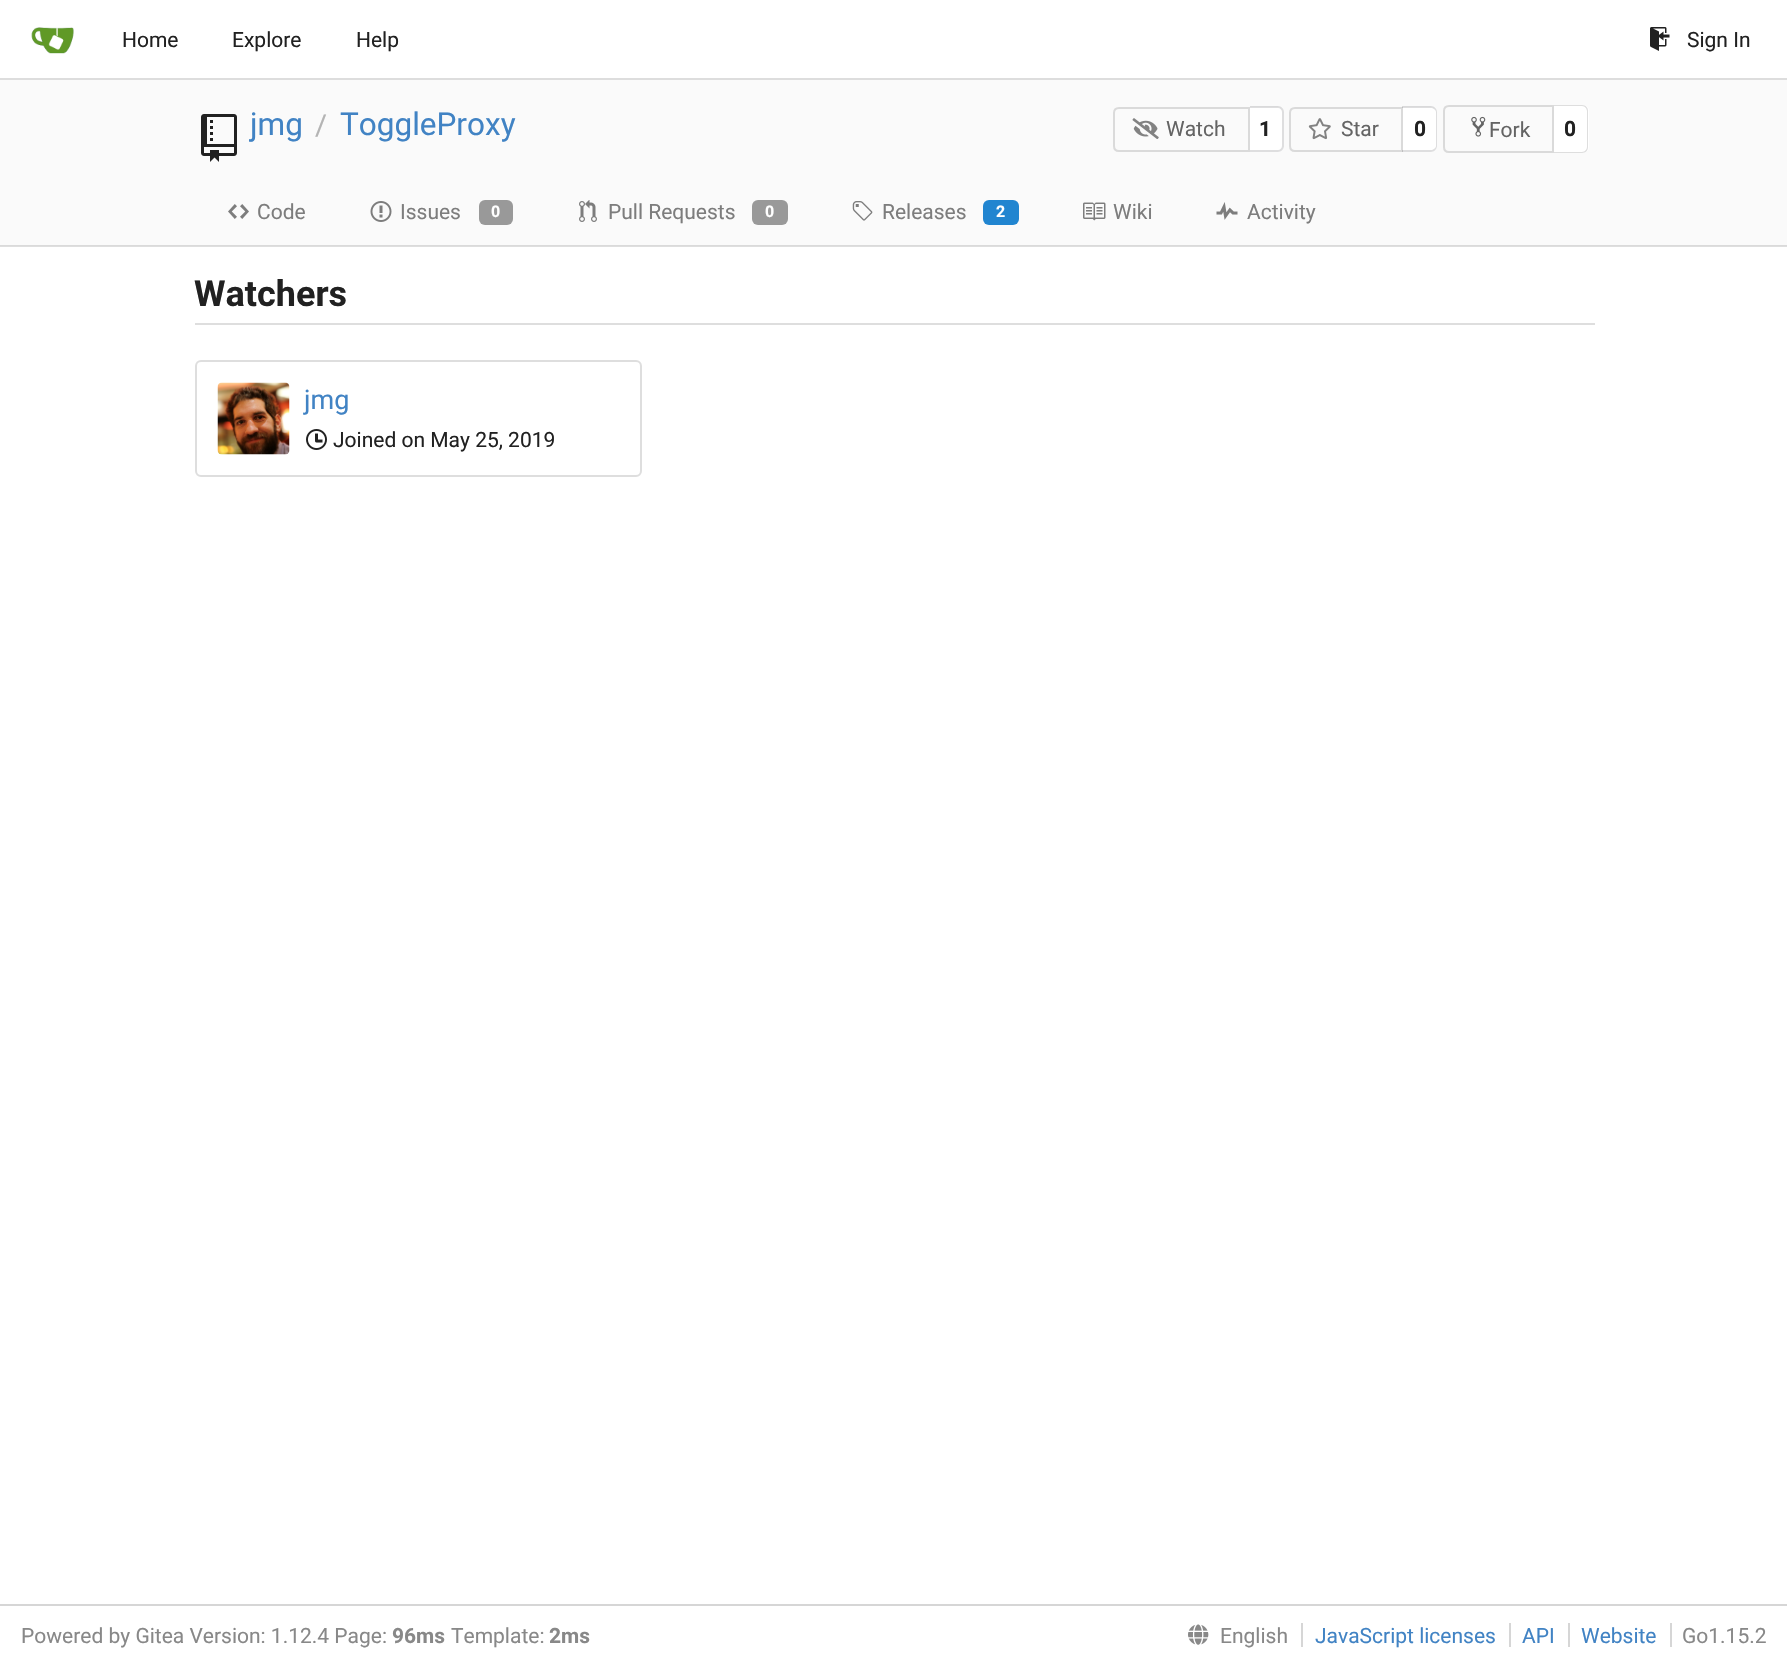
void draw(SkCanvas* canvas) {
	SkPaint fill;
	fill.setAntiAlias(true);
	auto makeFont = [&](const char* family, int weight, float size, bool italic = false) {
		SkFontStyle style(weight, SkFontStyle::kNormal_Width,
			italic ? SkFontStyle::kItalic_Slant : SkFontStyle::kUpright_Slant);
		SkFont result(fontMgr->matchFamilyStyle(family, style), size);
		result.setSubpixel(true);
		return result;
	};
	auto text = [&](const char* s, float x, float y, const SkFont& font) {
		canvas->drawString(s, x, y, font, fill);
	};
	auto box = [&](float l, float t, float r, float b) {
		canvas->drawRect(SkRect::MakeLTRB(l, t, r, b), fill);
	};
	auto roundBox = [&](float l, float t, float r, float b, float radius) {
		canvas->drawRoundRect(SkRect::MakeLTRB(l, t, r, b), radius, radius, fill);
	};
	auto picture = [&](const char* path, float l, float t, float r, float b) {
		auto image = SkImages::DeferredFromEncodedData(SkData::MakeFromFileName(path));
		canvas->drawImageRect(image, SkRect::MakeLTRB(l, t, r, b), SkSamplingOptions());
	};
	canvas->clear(0xFFFFFFFF);
	fill.setColor(0xFFDEDEDE);
	box(0, 246, 1787, 247);
	fill.setColor(0xFFDDDDDD);
	box(0, 78, 1787, 80);
	picture("image0.png", 31, 27, 74, 54);
	picture("image1.png", 1650, 27, 1670, 51);
	fill.setColor(0xFFFAFAFA);
	box(0, 80, 1787, 245);
	fill.setColor(0xFFDADADA);
	box(0, 245, 1787, 246);
	picture("image2.png", 201, 114, 237, 162);
	fill.setStyle(SkPaint::kStroke_Style);
	fill.setStrokeWidth(2);
	canvas->drawPath(SkPathBuilder().moveTo(1119, 108).lineTo(1249, 108).lineTo(1249, 151).lineTo(1119, 151).cubicTo(1116, 151, 1114, 149, 1114, 146).lineTo(1114, 113).cubicTo(1114, 110, 1116, 108, 1119, 108).close().detach(), fill);
	picture("image3.png", 1132, 118, 1159, 139);
	fill.setStyle(SkPaint::kFill_Style);
	fill.setColor(0xFFFFFFFF);
	canvas->drawPath(SkPathBuilder().moveTo(1250, 107).lineTo(1278, 107).cubicTo(1281.5f, 107, 1284, 109.5f, 1284, 113).lineTo(1284, 146).cubicTo(1284, 149.5f, 1281.5f, 152, 1278, 152).lineTo(1250, 152).close().detach(), fill);
	fill.setColor(0x26222426);
	canvas->drawPath(SkPathBuilder(SkPathFillType::kEvenOdd).moveTo(1250, 106).lineTo(1278, 106).cubicTo(1281, 106, 1284, 109, 1284, 112).lineTo(1284, 146).cubicTo(1284, 149, 1281, 152, 1278, 152).lineTo(1250, 152).close().moveTo(1250, 108).lineTo(1278, 108).cubicTo(1280, 108, 1282, 110, 1282, 112).lineTo(1282, 146).cubicTo(1282, 148, 1280, 150, 1278, 150).lineTo(1250, 150).close().detach(), fill);
	fill.setStyle(SkPaint::kStroke_Style);
	fill.setColor(0xFFDADADA);
	canvas->drawPath(SkPathBuilder().moveTo(1295, 108).lineTo(1402, 108).lineTo(1402, 151).lineTo(1295, 151).cubicTo(1292, 151, 1290, 149, 1290, 146).lineTo(1290, 113).cubicTo(1290, 110, 1292, 108, 1295, 108).close().detach(), fill);
	picture("image4.png", 1308, 118, 1331, 140);
	fill.setStyle(SkPaint::kFill_Style);
	fill.setColor(0xFFFFFFFF);
	canvas->drawPath(SkPathBuilder().moveTo(1403, 107).lineTo(1431, 107).cubicTo(1434.5f, 107, 1437, 109.5f, 1437, 113).lineTo(1437, 146).cubicTo(1437, 149.5f, 1434.5f, 152, 1431, 152).lineTo(1403, 152).close().detach(), fill);
	fill.setColor(0x26222426);
	canvas->drawPath(SkPathBuilder(SkPathFillType::kEvenOdd).moveTo(1402, 106).lineTo(1431, 106).cubicTo(1434, 106, 1437, 109, 1437, 112).lineTo(1437, 146).cubicTo(1437, 149, 1434, 152, 1431, 152).lineTo(1402, 152).close().moveTo(1402, 108).lineTo(1431, 108).cubicTo(1433, 108, 1436, 110, 1436, 112).lineTo(1436, 146).cubicTo(1436, 148, 1433, 150, 1431, 150).lineTo(1402, 150).close().detach(), fill);
	fill.setStyle(SkPaint::kStroke_Style);
	fill.setColor(0xFFDADADA);
	canvas->drawPath(SkPathBuilder().moveTo(1449, 106).lineTo(1553, 106).lineTo(1553, 152).lineTo(1449, 152).cubicTo(1446, 152, 1444, 150, 1444, 147).lineTo(1444, 111).cubicTo(1444, 108, 1446, 106, 1449, 106).close().detach(), fill);
	picture("image5.png", 1471, 116, 1486, 137);
	fill.setStyle(SkPaint::kFill_Style);
	fill.setColor(0xFFFFFFFF);
	canvas->drawPath(SkPathBuilder().moveTo(1554, 105).lineTo(1583, 105).cubicTo(1586.5f, 105, 1589, 107.5f, 1589, 111).lineTo(1589, 147).cubicTo(1589, 150.5f, 1586.5f, 153, 1583, 153).lineTo(1554, 153).close().detach(), fill);
	fill.setColor(0xFFDEDEDE);
	canvas->drawPath(SkPathBuilder(SkPathFillType::kEvenOdd).moveTo(1554, 105).lineTo(1582, 105).cubicTo(1586, 105, 1588, 108, 1588, 111).lineTo(1588, 147).cubicTo(1588, 150, 1586, 153, 1582, 153).lineTo(1554, 153).close().moveTo(1554, 106).lineTo(1582, 106).cubicTo(1585, 106, 1587, 109, 1587, 111).lineTo(1587, 147).cubicTo(1587, 149, 1585, 152, 1582, 152).lineTo(1554, 152).close().detach(), fill);
	picture("image6.png", 228, 204, 249, 219);
	picture("image7.png", 370, 201, 392, 222);
	fill.setColor(0xFF999999);
	roundBox(479, 200, 513, 225, 6);
	picture("image8.png", 579, 200, 597, 222);
	roundBox(752, 200, 788, 225, 6);
	picture("image9.png", 852, 201, 873, 221);
	fill.setColor(0xFF2185D0);
	roundBox(983, 200, 1019, 225, 6);
	picture("image10.png", 1083, 202, 1106, 221);
	picture("image11.png", 1216, 202, 1238, 220);
	fill.setColor(0xFFDEDEDE);
	box(195, 323, 1595, 325);
	fill.setStyle(SkPaint::kStroke_Style);
	canvas->drawRoundRect(SkRect::MakeLTRB(196, 361, 641, 476), 5, 5, fill);
	picture("image12.png", 217, 382, 290, 455);
	picture("image13.png", 306, 429, 327, 450);
	fill.setStyle(SkPaint::kFill_Style);
	fill.setColor(0xFFD6D6D6);
	box(0, 1604, 1787, 1606);
	picture("image14.png", 1188, 1624, 1209, 1645);
	box(1301, 1623, 1303, 1647);
	box(1509, 1623, 1511, 1647);
	box(1568, 1623, 1570, 1647);
	box(1670, 1623, 1672, 1647);
	auto font1 = makeFont("Roboto", 400, 21);
	fill.setColor(0xFF212121);
	text("Home", 122, 47, font1);
	text("Explore", 232, 47, font1);
	text("Help", 356, 47, font1);
	text("Sign In", 1687, 47, font1);
	auto font2 = makeFont("Roboto", 400, 31.5f);
	fill.setColor(0xFF4183C4);
	text("jmg", 250, 135, font2);
	auto font3 = makeFont("Roboto", 400, 29);
	fill.setColor(0xFFB4B4B4);
	text("/", 315, 135, font3);
	fill.setColor(0xFF4183C4);
	text("ToggleProxy", 340, 135, font2);
	fill.setColor(0xFF646464);
	text("Watch", 1166, 136, font1);
	auto font4 = makeFont("Roboto", 700, 21);
	fill.setColor(0xFF212121);
	text("1", 1259, 136, font4);
	fill.setColor(0xFF646464);
	text("Star", 1341, 136, font1);
	fill.setColor(0xFF212121);
	text("0", 1414, 136, font4);
	fill.setColor(0xFF646464);
	text("Fork", 1489, 137, font1);
	fill.setColor(0xFF212121);
	text("0", 1564, 136, font4);
	fill.setColor(0xFF7D7D7D);
	text("Code", 257, 219, font1);
	text("Issues", 400, 219, font1);
	auto font5 = makeFont("Roboto", 700, 16);
	fill.setColor(0xFFFFFFFF);
	text("0", 491, 217, font5);
	fill.setColor(0xFF7D7D7D);
	text("Pull Requests", 608, 219, font1);
	fill.setColor(0xFFFFFFFF);
	text("0", 765, 217, font5);
	fill.setColor(0xFF7D7D7D);
	text("Releases", 882, 219, font1);
	fill.setColor(0xFFFFFFFF);
	text("2", 996, 217, font5);
	fill.setColor(0xFF7D7D7D);
	text("Wiki", 1113, 219, font1);
	text("Activity", 1247, 219, font1);
	auto font6 = makeFont("Roboto", 700, 36);
	fill.setColor(0xFF212121);
	text("Watchers", 194, 306, font6);
	auto font7 = makeFont("Roboto", 400, 27);
	fill.setColor(0xFF4183C4);
	text("jmg", 304, 409, font7);
	fill.setColor(0xFF212121);
	text("Joined on May 25, 2019", 333, 447, font1);
	fill.setColor(0xFF888888);
	text("Powered by Gitea Version: 1.12.4 Page:", 21, 1643, font1);
	text("96ms", 392, 1643, font4);
	text("Template:", 451, 1643, font1);
	text("2ms", 549, 1643, font4);
	text("English", 1220, 1643, font1);
	fill.setColor(0xFF4183C4);
	text("JavaScript licenses", 1315, 1643, font1);
	text("API", 1522, 1643, font1);
	text("Website", 1581, 1643, font1);
	fill.setColor(0xFF888888);
	text("Go1.15.2", 1682, 1643, font1);
}
